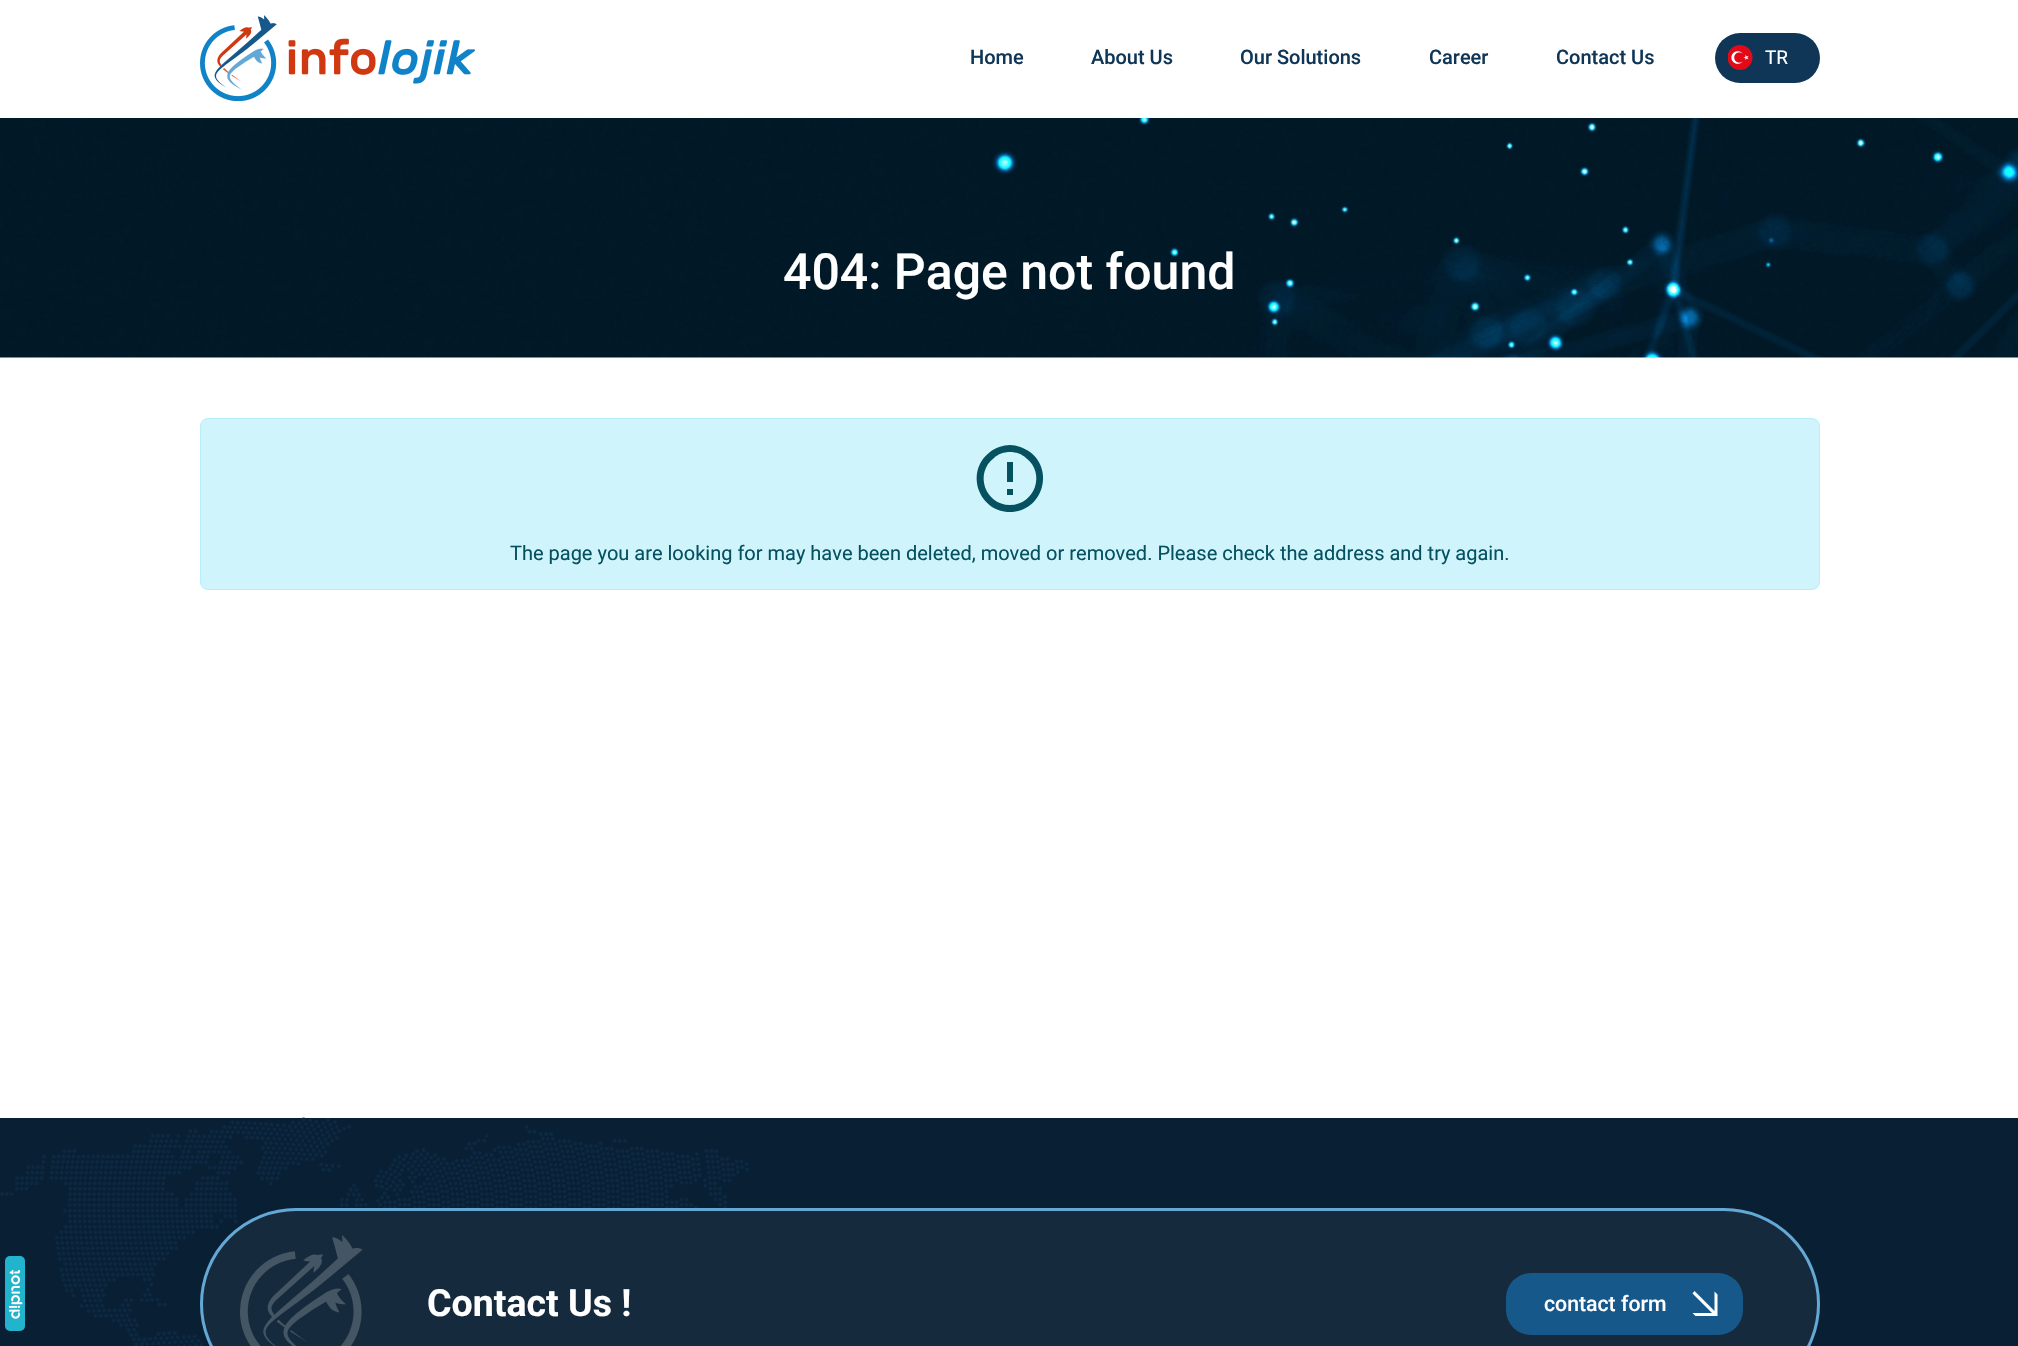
void draw(SkCanvas* canvas) {
	SkPaint fill;
	fill.setAntiAlias(true);
	auto makeFont = [&](const char* family, int weight, float size, bool italic = false) {
		SkFontStyle style(weight, SkFontStyle::kNormal_Width,
			italic ? SkFontStyle::kItalic_Slant : SkFontStyle::kUpright_Slant);
		SkFont result(fontMgr->matchFamilyStyle(family, style), size);
		result.setSubpixel(true);
		return result;
	};
	auto text = [&](const char* s, float x, float y, const SkFont& font) {
		canvas->drawString(s, x, y, font, fill);
	};
	auto box = [&](float l, float t, float r, float b) {
		canvas->drawRect(SkRect::MakeLTRB(l, t, r, b), fill);
	};
	auto roundBox = [&](float l, float t, float r, float b, float radius) {
		canvas->drawRoundRect(SkRect::MakeLTRB(l, t, r, b), radius, radius, fill);
	};
	auto picture = [&](const char* path, float l, float t, float r, float b) {
		auto image = SkImages::DeferredFromEncodedData(SkData::MakeFromFileName(path));
		canvas->drawImageRect(image, SkRect::MakeLTRB(l, t, r, b), SkSamplingOptions());
	};
	canvas->clear(0xFFFFFFFF);
	picture("image0.png", 200, 15, 475, 101);
	fill.setColor(0xFF0F3657);
	roundBox(1715, 33, 1820, 83, 25);
	picture("image1.png", 1728, 45, 1753, 70);
	picture("image2.png", 0, 118, 2018, 358);
	fill.setColor(0xFFCFF4FC);
	canvas->drawRoundRect(SkRect::MakeLTRB(200.5f, 418.5f, 1819.5f, 589.5f), 7.5f, 7.5f, fill);
	fill.setStyle(SkPaint::kStroke_Style);
	fill.setStrokeWidth(1);
	fill.setColor(0xFFB6EFFB);
	canvas->drawRoundRect(SkRect::MakeLTRB(200.5f, 418.5f, 1819.5f, 589.5f), 7.5f, 7.5f, fill);
	fill.setStyle(SkPaint::kFill_Style);
	fill.setColor(0xFF055160);
	canvas->drawPath(SkPathBuilder().moveTo(1007, 489).lineTo(1013, 489).lineTo(1013, 495).lineTo(1007, 495).close().moveTo(1007, 462).lineTo(1013, 462).lineTo(1013, 482).lineTo(1007, 482).close().moveTo(1010, 445).cubicTo(1003, 445, 995, 448, 990, 452).cubicTo(964, 472, 979, 512, 1010, 512).cubicTo(1042, 512, 1055, 471, 1030, 452).cubicTo(1024, 448, 1017, 445, 1010, 445).close().moveTo(1010, 505).cubicTo(985, 505, 974, 473, 994, 458).cubicTo(998, 454, 1004, 452, 1010, 452).cubicTo(1016, 452, 1022, 454, 1026, 458).cubicTo(1046, 473, 1035, 505, 1010, 505).close().detach(), fill);
	fill.setColor(0xFF091F33);
	box(0, 1118, 2018, 1346);
	picture("image4.png", 0, 1117, 749, 1346);
	fill.setColor(0xFF22B4CD);
	roundBox(5, 1256, 25, 1331, 5);
	picture("image3.png", 9, 1270, 23, 1319);
	fill.setColor(0xFF152A3D);
	roundBox(200, 1208, 1820, 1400, 96);
	picture("image5.png", 240, 1235, 363, 1346);
	fill.setStyle(SkPaint::kStroke_Style);
	fill.setStrokeWidth(3);
	fill.setColor(0xFF64A8D6);
	canvas->drawRoundRect(SkRect::MakeLTRB(201.5f, 1209.5f, 1818.5f, 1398.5f), 94.5f, 94.5f, fill);
	fill.setStyle(SkPaint::kFill_Style);
	fill.setColor(0xFF17588B);
	roundBox(1506, 1273, 1743, 1335, 25);
	fill.setColor(0xFFFFFFFF);
	canvas->drawPath(SkPathBuilder().moveTo(1717.5f, 1316).lineTo(1717.5f, 1294.5f).lineTo(1714.5f, 1291.5f).lineTo(1714.5f, 1311).lineTo(1694.5f, 1291).lineTo(1692.5f, 1293.5f).lineTo(1712, 1313).lineTo(1692.5f, 1313).lineTo(1695.5f, 1316).close().detach(), fill);
	auto font1 = makeFont("Roboto", 500, 20);
	fill.setColor(0xFF0F3657);
	text("Home", 970, 64, font1);
	text("About Us", 1091, 64, font1);
	text("Our Solutions", 1240, 64, font1);
	text("Career", 1429, 64, font1);
	text("Contact Us", 1556, 64, font1);
	auto font2 = makeFont("Roboto", 400, 19);
	fill.setColor(0xFFFFFFFF);
	text("TR", 1765, 64, font2);
	auto font3 = makeFont("Roboto", 500, 50);
	text("404: Page not found", 783, 289, font3);
	auto font4 = makeFont("Roboto", 400, 20);
	fill.setColor(0xFF055160);
	text("The page you are looking for may have been deleted, moved or removed. Please check the address and try again.", 510, 560, font4);
	auto font5 = makeFont("Roboto", 700, 37.5f);
	fill.setColor(0xFFFFFFFF);
	text("Contact Us !", 427, 1316, font5);
	auto font6 = makeFont("Roboto", 500, 21.25f);
	text("contact form", 1544, 1311, font6);
}
